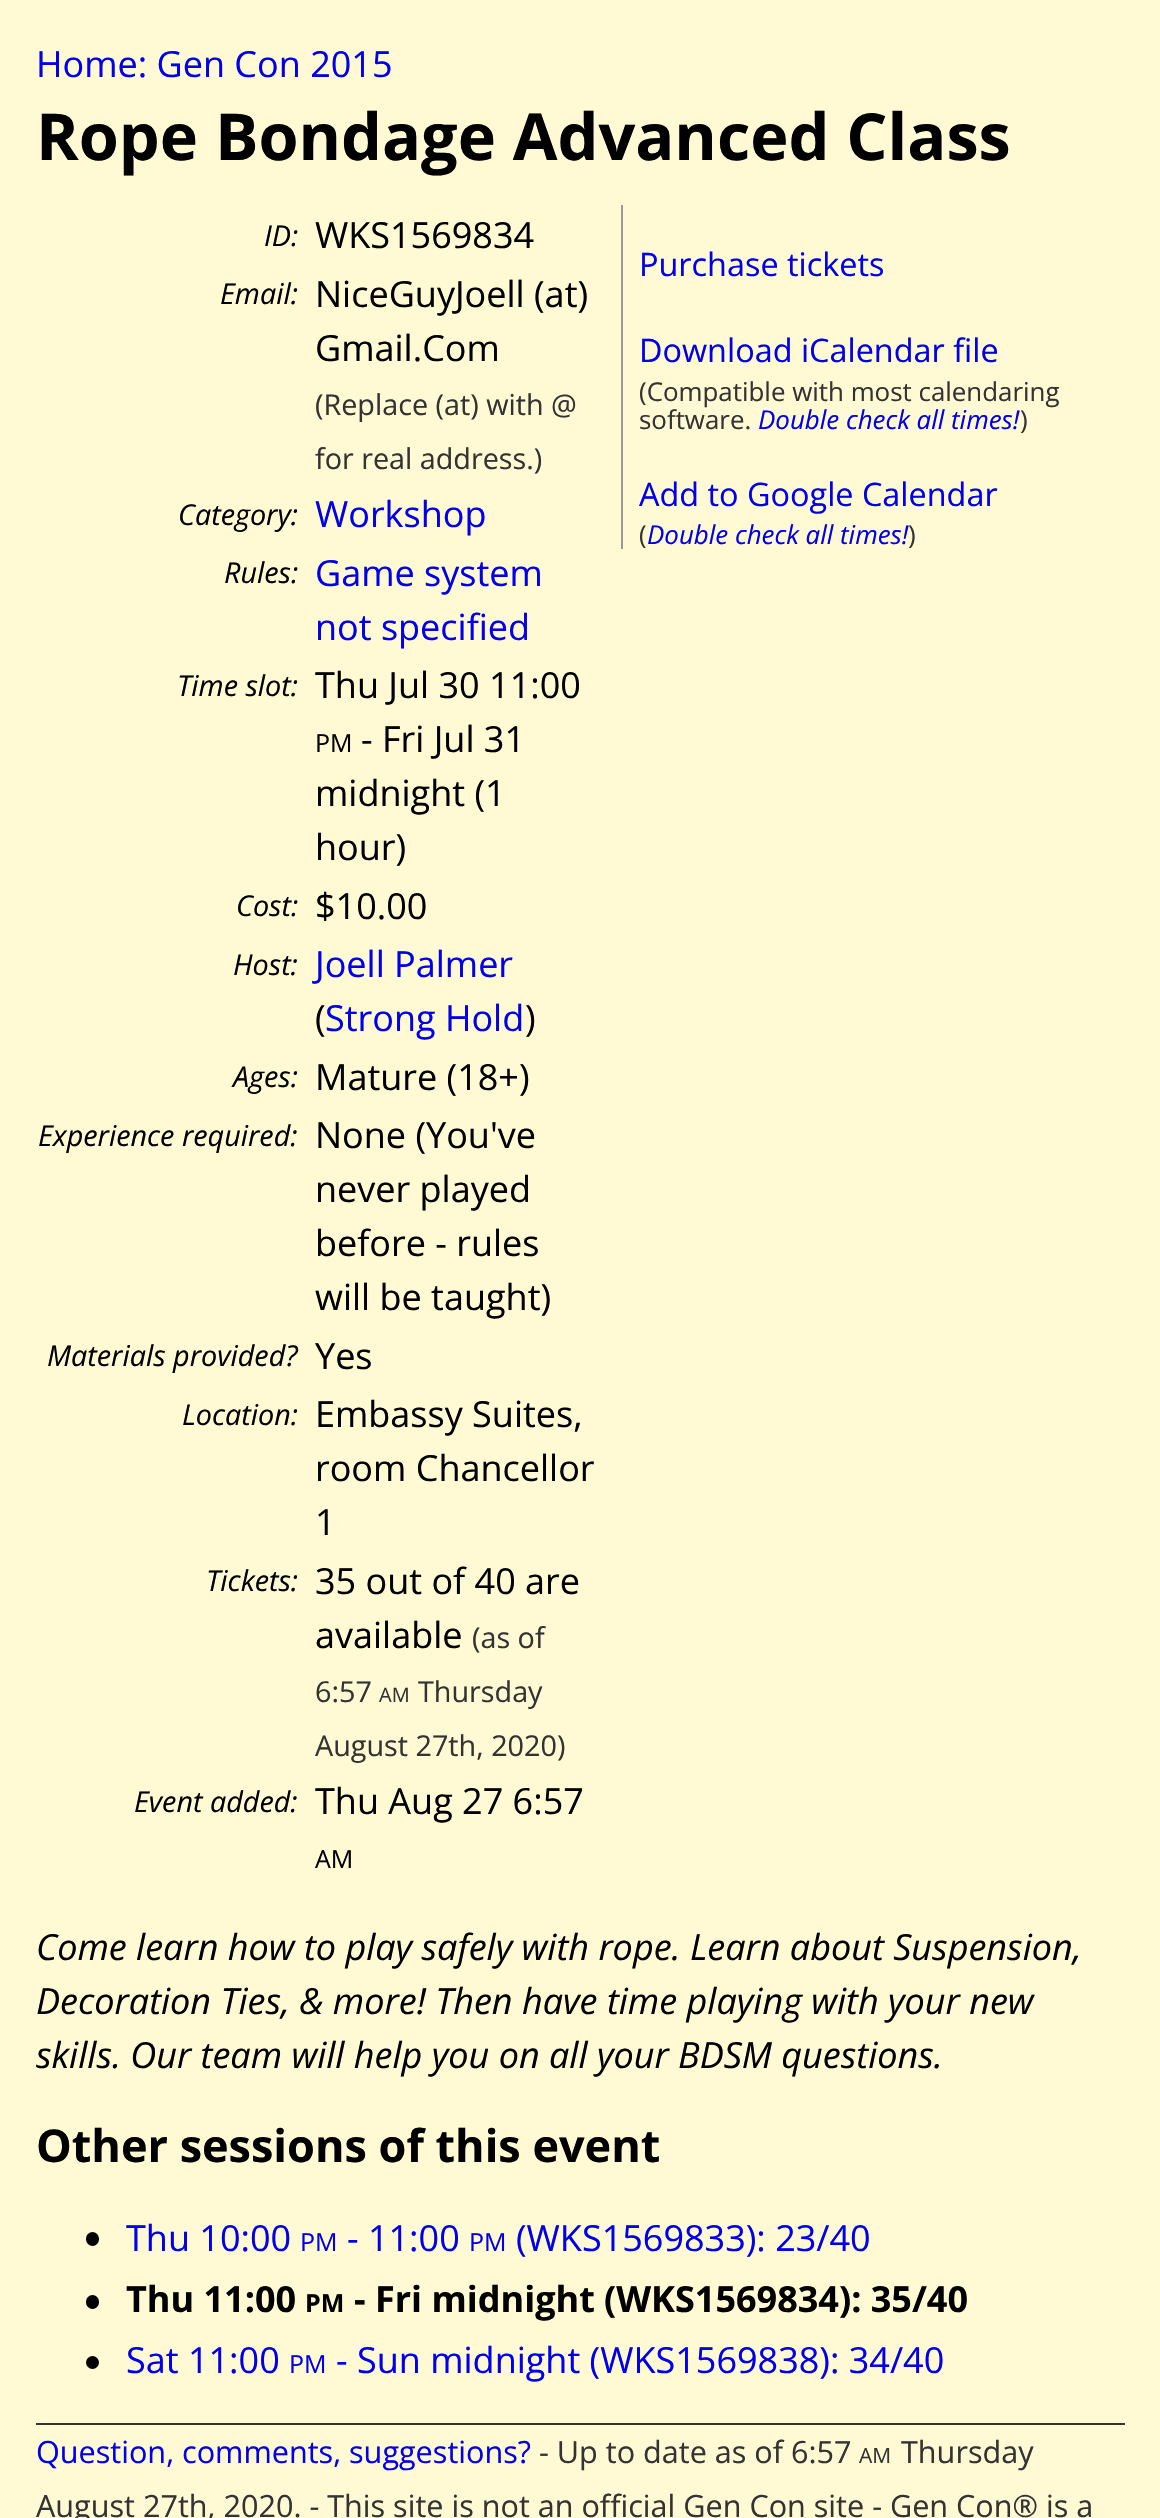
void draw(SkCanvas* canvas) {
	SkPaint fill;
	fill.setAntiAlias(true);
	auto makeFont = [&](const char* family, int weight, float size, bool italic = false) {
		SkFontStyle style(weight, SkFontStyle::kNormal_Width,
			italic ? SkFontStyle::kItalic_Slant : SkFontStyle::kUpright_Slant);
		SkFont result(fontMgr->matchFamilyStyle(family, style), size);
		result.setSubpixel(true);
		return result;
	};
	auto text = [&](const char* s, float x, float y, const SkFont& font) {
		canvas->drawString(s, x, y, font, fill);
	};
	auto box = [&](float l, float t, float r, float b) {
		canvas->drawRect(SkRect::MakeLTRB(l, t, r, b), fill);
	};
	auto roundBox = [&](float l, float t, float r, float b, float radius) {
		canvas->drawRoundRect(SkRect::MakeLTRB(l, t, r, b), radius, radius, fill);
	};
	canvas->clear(0xFFFFFAD3);
	fill.setColor(0xFF999999);
	box(621, 205, 623, 549);
	fill.setColor(0xFF000000);
	roundBox(86, 2232, 99, 2246, 6.5f);
	roundBox(86, 2295, 99, 2309, 6.5f);
	canvas->drawCircle(92.5f, 2362.5f, 6.5f, fill);
	fill.setColor(0xFF333333);
	box(36, 2423, 1125, 2425);
	auto font1 = makeFont("Open Sans", 400, 36);
	fill.setColor(0xFF0000EE);
	text("Home: Gen Con 2015", 36, 77, font1);
	auto font2 = makeFont("Open Sans", 700, 64.75f);
	fill.setColor(0xFF000000);
	text("Rope Bondage Advanced Class", 36, 160, font2);
	auto font3 = makeFont("Open Sans", 400, 28.75f, true);
	text("ID:", 264, 246, font3);
	text("WKS1569834", 315, 248, font1);
	text("Email:", 220, 304, font3);
	text("NiceGuyJoell (at)", 315, 307, font1);
	text("Gmail.Com", 315, 361, font1);
	auto font4 = makeFont("Open Sans", 400, 28.75f);
	fill.setColor(0xFF333333);
	text("(Replace (at) with @", 315, 415, font4);
	text("for real address.)", 315, 469, font4);
	fill.setColor(0xFF000000);
	text("Category:", 178, 525, font3);
	fill.setColor(0xFF0000EE);
	text("Workshop", 315, 527, font1);
	fill.setColor(0xFF000000);
	text("Rules:", 224, 583, font3);
	fill.setColor(0xFF0000EE);
	text("Game system", 315, 586, font1);
	text("not specified", 315, 640, font1);
	fill.setColor(0xFF000000);
	text("Time slot:", 177, 696, font3);
	text("Thu Jul 30 11:00", 315, 698, font1);
	auto font5 = makeFont("Open Sans", 400, 25);
	text("PM", 315, 752, font5);
	text("- Fri Jul 31", 361, 752, font1);
	text("midnight (1", 315, 806, font1);
	text("hour)", 315, 860, font1);
	text("Cost:", 236, 916, font3);
	text("$10.00", 315, 919, font1);
	text("Host:", 233, 975, font3);
	fill.setColor(0xFF0000EE);
	text("Joell Palmer", 315, 977, font1);
	fill.setColor(0xFF000000);
	text("(", 315, 1031, font1);
	fill.setColor(0xFF0000EE);
	text("Strong Hold", 325, 1031, font1);
	fill.setColor(0xFF000000);
	text(")", 525, 1031, font1);
	text("Ages:", 233, 1087, font3);
	text("Mature (18+)", 315, 1090, font1);
	text("Experience required:", 38, 1146, font3);
	text("None (You've", 315, 1148, font1);
	text("never played", 315, 1202, font1);
	text("before - rules", 315, 1256, font1);
	text("will be taught)", 315, 1310, font1);
	text("Materials provided?", 47, 1366, font3);
	text("Yes", 315, 1369, font1);
	text("Location:", 182, 1425, font3);
	text("Embassy Suites,", 315, 1427, font1);
	text("room Chancellor", 315, 1481, font1);
	text("1", 315, 1535, font1);
	text("Tickets:", 206, 1591, font3);
	text("35 out of 40 are", 315, 1594, font1);
	text("available", 315, 1648, font1);
	fill.setColor(0xFF333333);
	text("(as of", 472, 1648, font4);
	text("6:57", 315, 1702, font4);
	auto font6 = makeFont("Open Sans", 400, 20);
	text("AM", 379, 1702, font6);
	text("Thursday", 418, 1702, font4);
	text("August 27th, 2020)", 315, 1756, font4);
	fill.setColor(0xFF000000);
	text("Event added:", 134, 1812, font3);
	text("Thu Aug 27 6:57", 315, 1814, font1);
	text("AM", 315, 1868, font5);
	auto font7 = makeFont("Open Sans", 400, 32.4f);
	fill.setColor(0xFF0000EE);
	text("Purchase tickets", 639, 276, font7);
	text("Download iCalendar file", 639, 362, font7);
	auto font8 = makeFont("Open Sans", 400, 25.9f);
	fill.setColor(0xFF333333);
	text("(Compatible with most calendaring", 639, 401, font8);
	text("software.", 639, 429, font8);
	auto font9 = makeFont("Open Sans", 400, 25.9f, true);
	fill.setColor(0xFF0000EE);
	text("Double check all times!", 758, 429, font9);
	fill.setColor(0xFF333333);
	text(")", 1020, 429, font8);
	fill.setColor(0xFF0000EE);
	text("Add to Google Calendar", 639, 506, font7);
	fill.setColor(0xFF333333);
	text("(", 639, 544, font8);
	fill.setColor(0xFF0000EE);
	text("Double check all times!", 647, 544, font9);
	fill.setColor(0xFF333333);
	text(")", 908, 544, font8);
	auto font10 = makeFont("Open Sans", 400, 36, true);
	fill.setColor(0xFF000000);
	text("Come learn how to play safely with rope. Learn about Suspension,", 36, 1960, font10);
	text("Decoration Ties, & more! Then have time playing with your new", 36, 2014, font10);
	text("skills. Our team will help you on all your BDSM questions.", 36, 2068, font10);
	auto font11 = makeFont("Open Sans", 700, 45);
	text("Other sessions of this event", 36, 2162, font11);
	fill.setColor(0xFF0000EE);
	text("Thu 10:00", 126, 2251, font1);
	text("PM", 300, 2251, font5);
	text("- 11:00", 347, 2251, font1);
	text("PM", 469, 2251, font5);
	text("(WKS1569833): 23/40", 516, 2251, font1);
	auto font12 = makeFont("Open Sans", 700, 36);
	fill.setColor(0xFF000000);
	text("Thu 11:00", 126, 2312, font12);
	auto font13 = makeFont("Open Sans", 700, 25);
	text("PM", 305, 2312, font13);
	text("- Fri midnight (WKS1569834): 35/40", 354, 2312, font12);
	fill.setColor(0xFF0000EE);
	text("Sat 11:00", 126, 2373, font1);
	text("PM", 289, 2373, font5);
	text("- Sun midnight (WKS1569838): 34/40", 336, 2373, font1);
	auto font14 = makeFont("Open Sans", 400, 30.6f);
	text("Question, comments, suggestions?", 36, 2463, font14);
	fill.setColor(0xFF333333);
	text("- Up to date as of 6:57", 539, 2463, font14);
	auto font15 = makeFont("Open Sans", 400, 21);
	text("AM", 859, 2463, font15);
	text("Thursday", 901, 2463, font14);
	text("August 27th, 2020. - This site is not an official Gen Con site - Gen Con® is a", 36, 2517, font14);
}
